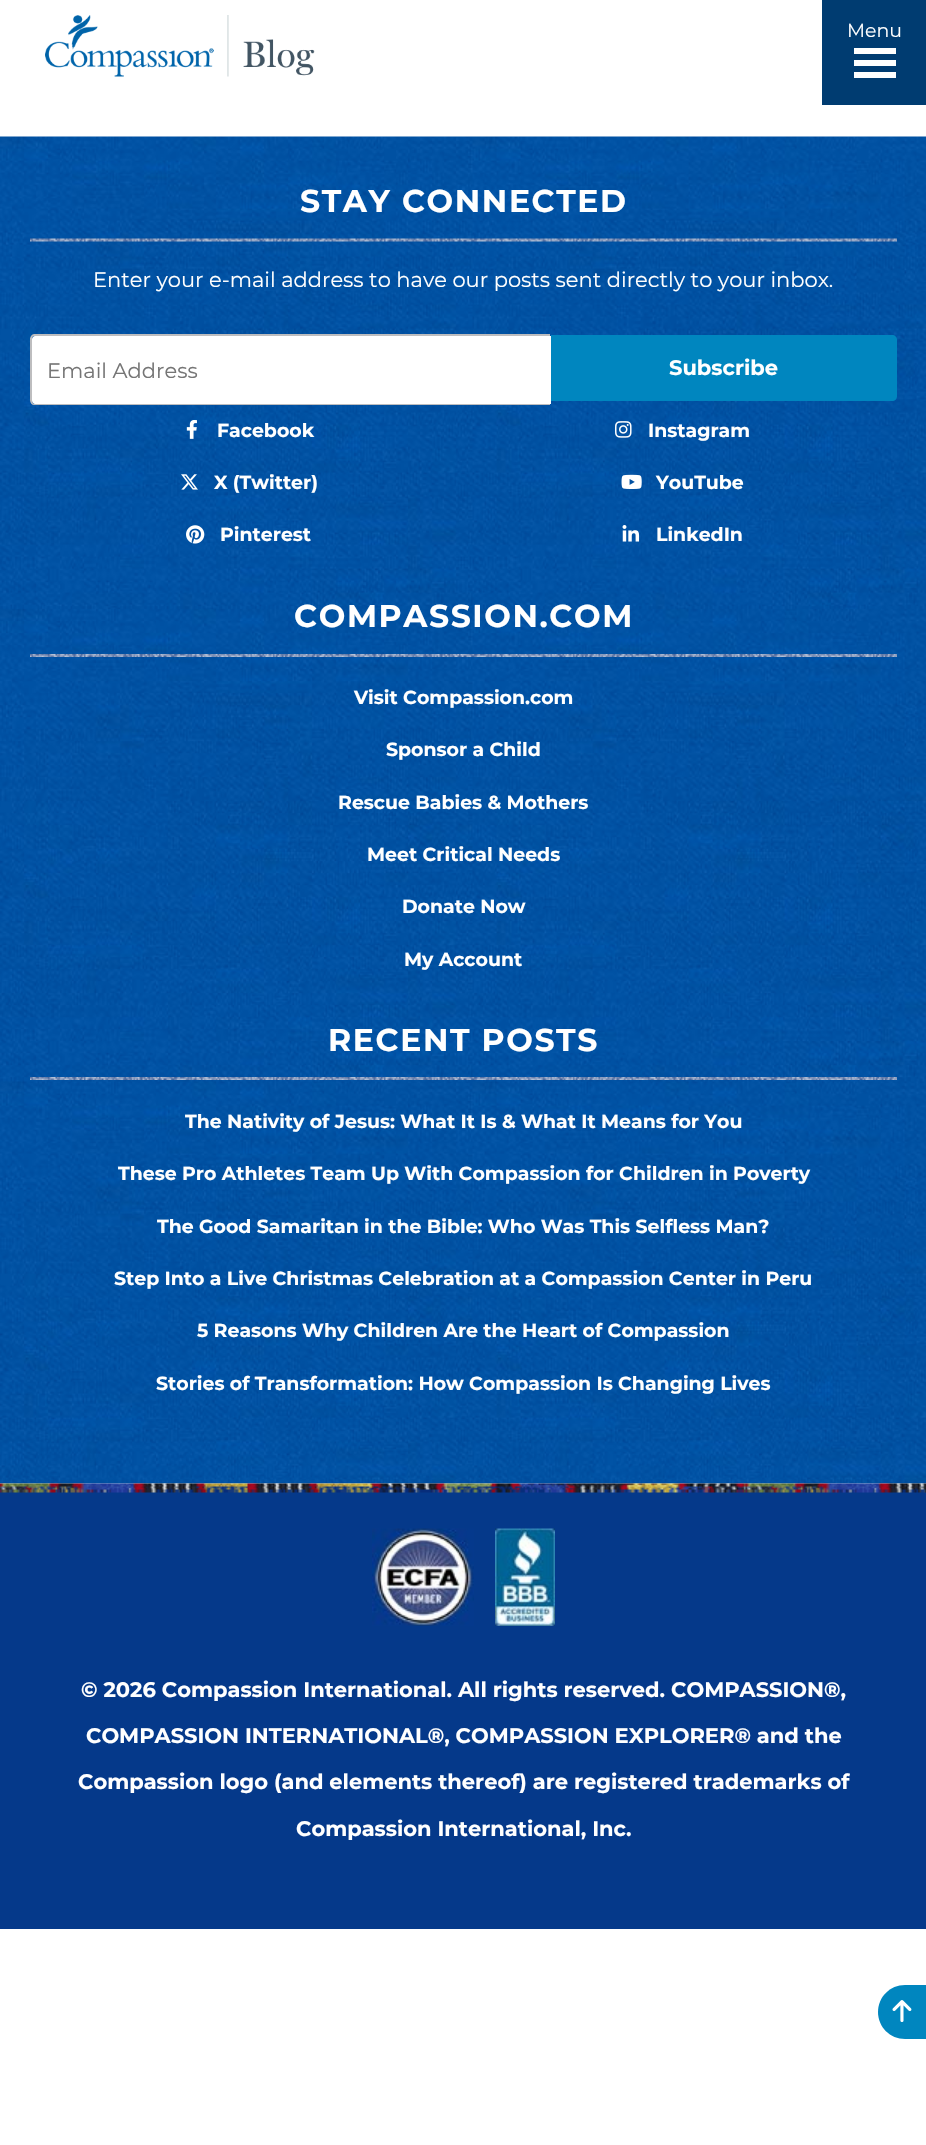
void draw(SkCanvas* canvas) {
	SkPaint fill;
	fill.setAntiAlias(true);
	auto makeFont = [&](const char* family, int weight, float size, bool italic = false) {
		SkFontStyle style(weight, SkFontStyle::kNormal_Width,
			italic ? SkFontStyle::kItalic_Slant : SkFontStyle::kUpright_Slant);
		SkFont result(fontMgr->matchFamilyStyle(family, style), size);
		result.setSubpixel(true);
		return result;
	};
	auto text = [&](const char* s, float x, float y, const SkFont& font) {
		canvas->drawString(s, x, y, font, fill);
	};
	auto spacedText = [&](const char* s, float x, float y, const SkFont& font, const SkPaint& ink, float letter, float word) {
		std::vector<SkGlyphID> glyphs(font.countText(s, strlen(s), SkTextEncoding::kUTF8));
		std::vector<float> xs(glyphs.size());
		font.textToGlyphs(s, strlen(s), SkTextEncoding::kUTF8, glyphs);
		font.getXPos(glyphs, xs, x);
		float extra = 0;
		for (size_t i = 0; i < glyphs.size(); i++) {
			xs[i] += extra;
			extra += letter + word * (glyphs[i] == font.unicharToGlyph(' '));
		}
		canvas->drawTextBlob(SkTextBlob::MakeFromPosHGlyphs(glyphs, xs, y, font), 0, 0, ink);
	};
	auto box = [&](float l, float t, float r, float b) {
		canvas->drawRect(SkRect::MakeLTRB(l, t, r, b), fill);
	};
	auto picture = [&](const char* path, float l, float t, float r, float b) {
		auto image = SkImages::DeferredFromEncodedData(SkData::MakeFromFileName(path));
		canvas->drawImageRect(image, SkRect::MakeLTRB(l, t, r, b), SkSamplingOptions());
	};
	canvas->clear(0xFFFFFFFF);
	picture("image0.png", 45, 15, 315, 77);
	fill.setColor(0xFF003C71);
	box(822, 0, 926, 105);
	fill.setColor(0xFFFFFFFF);
	box(854, 60, 896, 66);
	box(854, 48, 896, 54);
	box(854, 72, 896, 78);
	picture("image1.png", 0, 136, 926, 1484);
	picture("image2.png", 30, 238, 897, 242);
	canvas->drawPath(SkPathBuilder().moveTo(35, 336).lineTo(551, 336).lineTo(551, 404).lineTo(35, 404).cubicTo(33.5f, 404, 32, 402.5f, 32, 401).lineTo(32, 339).cubicTo(32, 337.5f, 33.5f, 336, 35, 336).close().detach(), fill);
	fill.setColor(0xFFBDBDBF);
	canvas->drawPath(SkPathBuilder(SkPathFillType::kEvenOdd).moveTo(34, 334).lineTo(550, 334).lineTo(550, 405).lineTo(34, 405).cubicTo(32, 405, 30, 403, 30, 400).lineTo(30, 339).cubicTo(30, 337, 32, 334, 34, 334).close().moveTo(34, 336).lineTo(550, 336).lineTo(550, 404).lineTo(34, 404).cubicTo(33, 404, 32, 402, 32, 400).lineTo(32, 339).cubicTo(32, 337, 33, 336, 34, 336).close().detach(), fill);
	fill.setColor(0xFF0086BF);
	canvas->drawPath(SkPathBuilder().moveTo(551, 335).lineTo(892, 335).cubicTo(895, 335, 897, 337, 897, 340).lineTo(897, 396).cubicTo(897, 399, 895, 401, 892, 401).lineTo(551, 401).close().detach(), fill);
	picture("image3.png", 186, 420, 197, 439);
	picture("image4.png", 615, 421, 632, 438);
	picture("image5.png", 181, 474, 198, 490);
	picture("image6.png", 621, 474, 642, 489);
	picture("image7.png", 186, 525, 205, 544);
	picture("image8.png", 622, 525, 640, 542);
	picture("image9.png", 30, 654, 897, 657);
	picture("image10.png", 30, 1077, 897, 1080);
	fill.setColor(0xFF05398A);
	box(0, 1493, 926, 1929);
	picture("image11.png", 0, 1483, 926, 1493);
	picture("image12.png", 372, 1528, 474, 1626);
	picture("image13.png", 495, 1528, 555, 1626);
	fill.setColor(0xFF0086BF);
	canvas->drawPath(SkPathBuilder().moveTo(905, 1985).lineTo(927, 1985).lineTo(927, 2039).lineTo(905, 2039).cubicTo(890, 2039, 878, 2027, 878, 2012).cubicTo(878, 1997, 890, 1985, 905, 1985).close().detach(), fill);
	picture("image14.png", 892, 2000, 912, 2022);
	auto font1 = makeFont("Montserrat", 100, 18.9f);
	fill.setColor(0xFFFFFFFF);
	text("Menu", 847, 37, font1);
	auto font2 = makeFont("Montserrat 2", 100, 31.5f);
	spacedText("STAY CONNECTED", 300, 212, font2, fill, 1.6f, 0);
	auto font3 = makeFont("Montserrat", 100, 21);
	text("Enter your e-mail address to have our posts sent directly to your inbox.", 93, 287, font3);
	fill.setColor(0xFF757575);
	text("Email Address", 47, 378, font3);
	auto font4 = makeFont("Montserrat 2", 100, 21);
	fill.setColor(0xFFFFFFFF);
	text("Subscribe", 669, 375, font4);
	auto font5 = makeFont("Montserrat 2", 100, 18.9f);
	text("Facebook", 217, 437, font5);
	text("Instagram", 648, 437, font5);
	text("X (Twitter)", 214, 489, font5);
	text("YouTube", 656, 489, font5);
	text("Pinterest", 220, 541, font5);
	text("LinkedIn", 656, 541, font5);
	spacedText("COMPASSION.COM", 294, 627, font2, fill, 1.6f, 0);
	text("Visit Compassion.com", 354, 704, font5);
	text("Sponsor a Child", 386, 756, font5);
	text("Rescue Babies & Mothers", 338, 809, font5);
	text("Meet Critical Needs", 367, 861, font5);
	text("Donate Now", 402, 913, font5);
	text("My Account", 404, 966, font5);
	spacedText("RECENT POSTS", 328, 1051, font2, fill, 1.6f, 0);
	text("The Nativity of Jesus: What It Is & What It Means for You", 185, 1128, font5);
	text("These Pro Athletes Team Up With Compassion for Children in Poverty", 118, 1180, font5);
	text("The Good Samaritan in the Bible: Who Was This Selfless Man?", 157, 1233, font5);
	text("Step Into a Live Christmas Celebration at a Compassion Center in Peru", 114, 1285, font5);
	text("5 Reasons Why Children Are the Heart of Compassion", 197, 1337, font5);
	text("Stories of Transformation: How Compassion Is Changing Lives", 156, 1390, font5);
	text("© 2026 Compassion International. All rights reserved. COMPASSION®,", 81, 1697, font4);
	text("COMPASSION INTERNATIONAL®, COMPASSION EXPLORER® and the", 86, 1743, font4);
	text("Compassion logo (and elements thereof) are registered trademarks of", 78, 1789, font4);
	text("Compassion International, Inc.", 296, 1836, font4);
}
